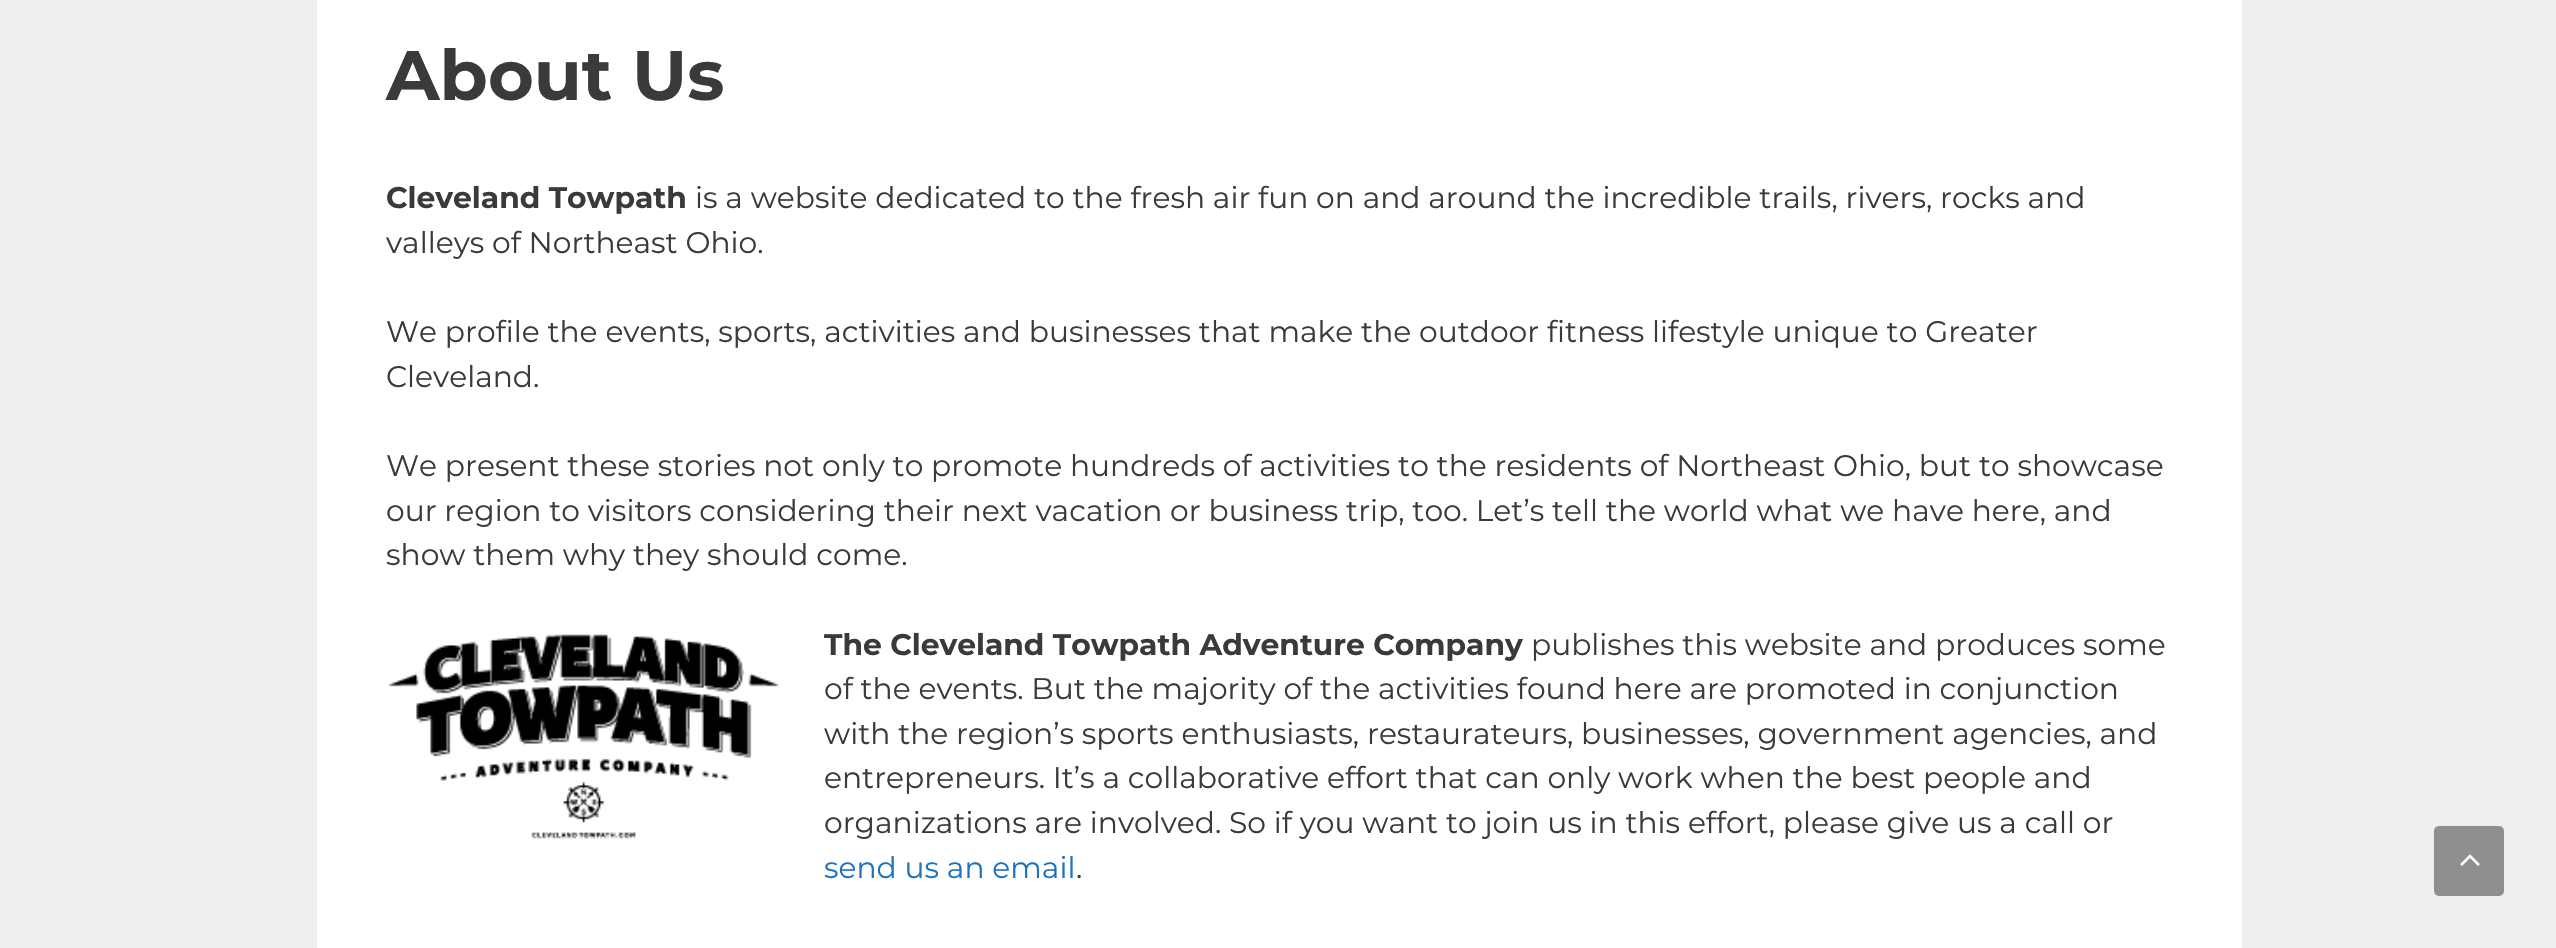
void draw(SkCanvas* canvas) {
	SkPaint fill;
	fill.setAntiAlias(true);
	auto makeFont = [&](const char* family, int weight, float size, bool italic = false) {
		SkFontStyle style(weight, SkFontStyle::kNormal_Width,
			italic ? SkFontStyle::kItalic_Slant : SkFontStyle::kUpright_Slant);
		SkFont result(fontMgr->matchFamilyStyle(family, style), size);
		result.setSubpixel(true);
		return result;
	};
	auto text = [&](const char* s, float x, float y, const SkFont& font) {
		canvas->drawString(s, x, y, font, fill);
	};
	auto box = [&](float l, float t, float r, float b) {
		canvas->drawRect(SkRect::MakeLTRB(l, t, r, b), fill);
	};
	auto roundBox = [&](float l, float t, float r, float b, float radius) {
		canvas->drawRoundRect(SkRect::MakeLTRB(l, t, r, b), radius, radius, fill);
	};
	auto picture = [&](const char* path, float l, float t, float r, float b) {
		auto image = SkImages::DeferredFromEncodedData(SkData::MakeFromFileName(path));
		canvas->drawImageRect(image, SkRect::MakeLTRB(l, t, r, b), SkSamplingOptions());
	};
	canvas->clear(0xFFEFEFEF);
	fill.setColor(0xFFFFFFFF);
	box(317, 0, 2242, 948);
	picture("image0.png", 388, 634, 780, 839);
	fill.setColor(0xFF8F8F8F);
	roundBox(2434, 826, 2504, 896, 5);
	picture("image1.png", 2460, 854, 2480, 866);
	auto font1 = makeFont("Montserrat", 700, 70);
	fill.setColor(0xFF3A3A3A);
	text("About Us", 386, 100, font1);
	auto font2 = makeFont("Montserrat", 700, 29.75f);
	text("Cleveland Towpath", 386, 208, font2);
	auto font3 = makeFont("Montserrat", 400, 29.75f);
	text("is a website dedicated to the fresh air fun on and around the incredible trails, rivers, rocks and", 695, 208, font3);
	text("valleys of Northeast Ohio.", 386, 253, font3);
	text("We profile the events, sports, activities and businesses that make the outdoor fitness lifestyle unique to Greater", 386, 342, font3);
	text("Cleveland.", 386, 387, font3);
	text("We present these stories not only to promote hundreds of activities to the residents of Northeast Ohio, but to showcase", 386, 476, font3);
	text("our region to visitors considering their next vacation or business trip, too. Let’s tell the world what we have here, and", 386, 521, font3);
	text("show them why they should come.", 386, 565, font3);
	text("The Cleveland Towpath Adventure Company", 824, 655, font2);
	text("publishes this website and produces some", 1531, 655, font3);
	text("of the events. But the majority of the activities found here are promoted in conjunction", 824, 699, font3);
	text("with the region’s sports enthusiasts, restaurateurs, businesses, government agencies, and", 824, 744, font3);
	text("entrepreneurs. It’s a collaborative effort that can only work when the best people and", 824, 788, font3);
	text("organizations are involved. So if you want to join us in this effort, please give us a call or", 824, 833, font3);
	fill.setColor(0xFF1E73BE);
	text("send us an email", 824, 878, font3);
	fill.setColor(0xFF3A3A3A);
	text(".", 1076, 878, font3);
}
